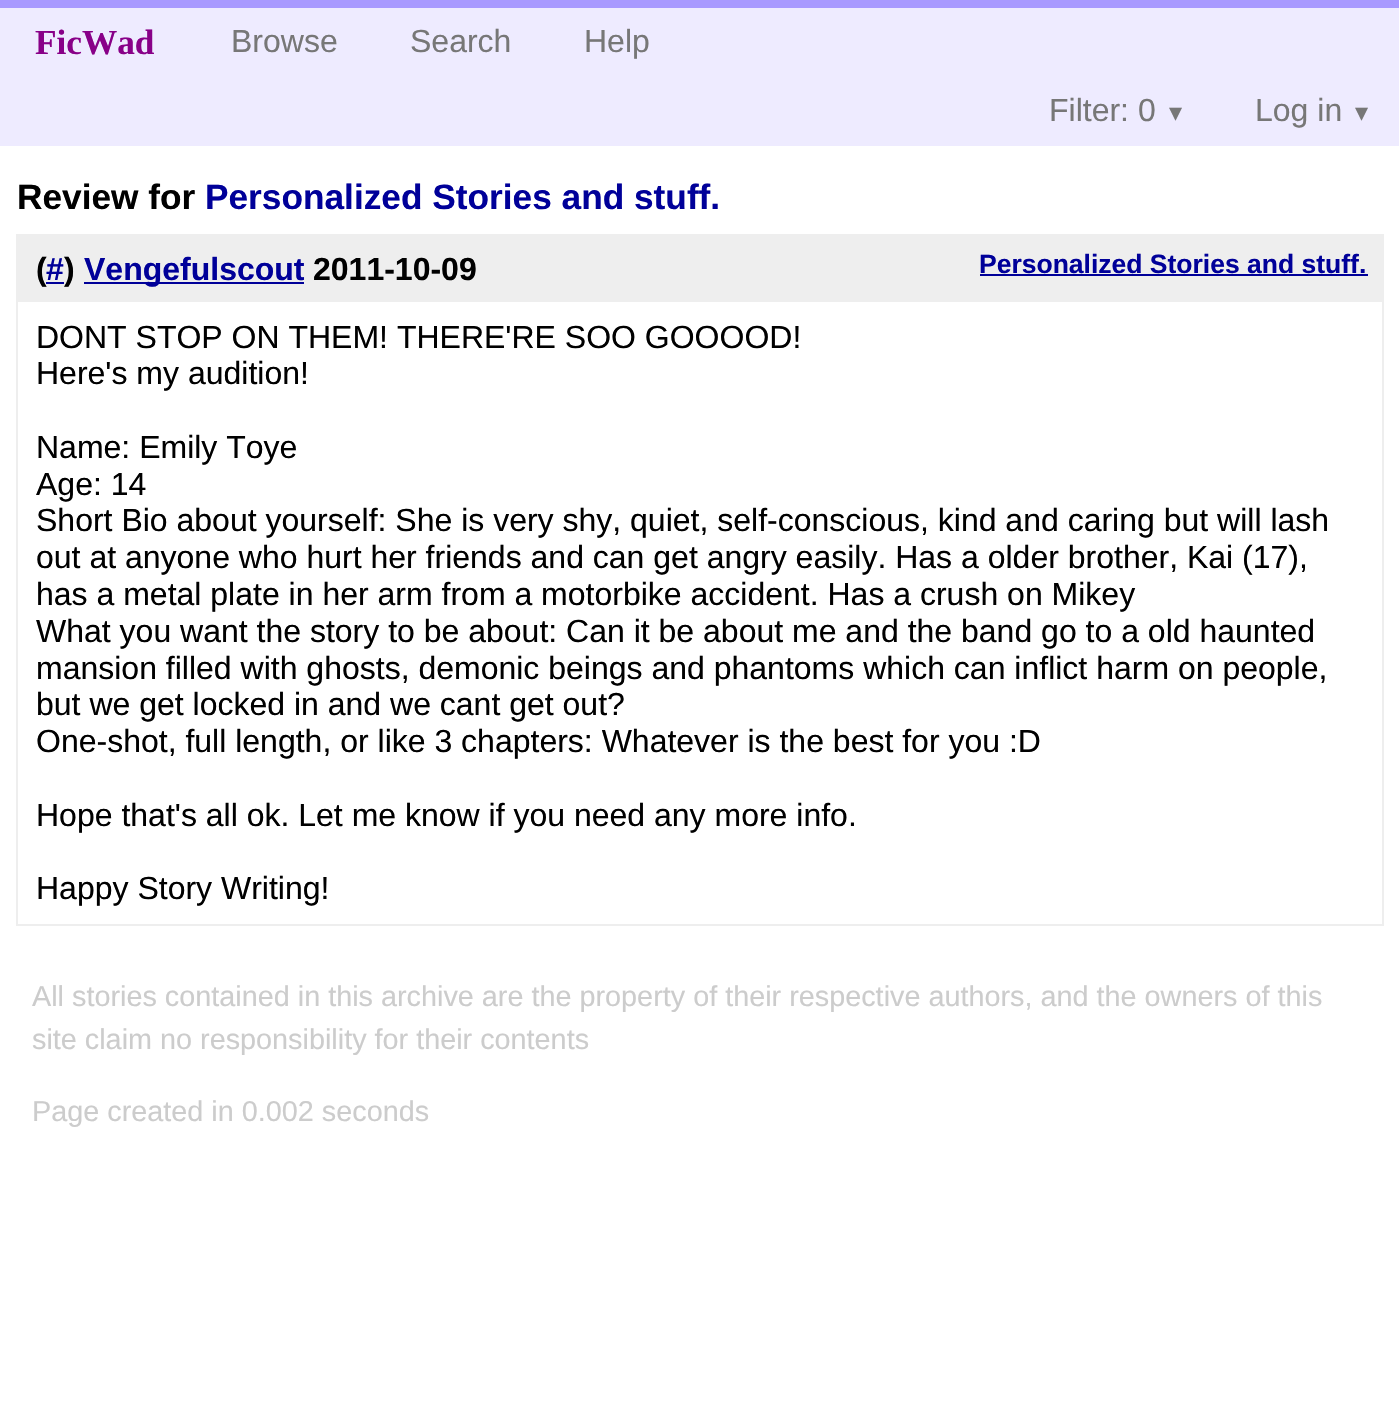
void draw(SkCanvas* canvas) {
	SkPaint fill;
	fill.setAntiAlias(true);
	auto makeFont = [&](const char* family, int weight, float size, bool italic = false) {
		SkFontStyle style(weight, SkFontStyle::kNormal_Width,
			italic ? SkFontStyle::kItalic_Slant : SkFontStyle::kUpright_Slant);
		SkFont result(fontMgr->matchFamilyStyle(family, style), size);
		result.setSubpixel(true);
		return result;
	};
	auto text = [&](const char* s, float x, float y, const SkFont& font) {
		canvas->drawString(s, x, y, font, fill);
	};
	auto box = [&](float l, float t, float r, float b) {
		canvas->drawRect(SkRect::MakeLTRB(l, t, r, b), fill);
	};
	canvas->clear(0xFFFFFFFF);
	fill.setColor(0xFFEEEBFF);
	box(0, 8, 1399, 146);
	fill.setColor(0xFFA899FF);
	box(0, 0, 1399, 8);
	fill.setStyle(SkPaint::kStroke_Style);
	fill.setStrokeWidth(2);
	fill.setColor(0xFFEEEEEE);
	canvas->drawRect(SkRect::MakeLTRB(17, 235, 1383, 925), fill);
	fill.setStyle(SkPaint::kFill_Style);
	box(18, 236, 1382, 302);
	fill.setColor(0xFF000099);
	box(84, 282, 304, 284);
	box(980, 274, 1368, 276);
	auto font1 = makeFont("Liberation Serif", 700, 35.25f);
	fill.setColor(0xFF880088);
	text("FicWad", 35, 54, font1);
	auto font2 = makeFont("Liberation Sans", 400, 32);
	fill.setColor(0xFF777777);
	text("Browse", 231, 52, font2);
	text("Search", 410, 52, font2);
	text("Help", 584, 52, font2);
	text("Filter: 0", 1049, 121, font2);
	auto font3 = makeFont("DejaVu Sans", 400, 26);
	text("▾", 1169, 121, font3);
	text("Log in", 1255, 121, font2);
	text("▾", 1355, 121, font3);
	auto font4 = makeFont("Liberation Sans", 700, 35.25f);
	fill.setColor(0xFF000000);
	text("Review for", 17, 209, font4);
	fill.setColor(0xFF000099);
	text("Personalized Stories and stuff.", 205, 209, font4);
	auto font5 = makeFont("Liberation Sans", 700, 32);
	fill.setColor(0xFF000000);
	text("(", 36, 280, font5);
	fill.setColor(0xFF000099);
	text("#", 46, 280, font5);
	box(46, 282, 64, 284);
	fill.setColor(0xFF000000);
	text(")", 64, 280, font5);
	fill.setColor(0xFF000099);
	text("Vengefulscout", 84, 280, font5);
	fill.setColor(0xFF000000);
	text("2011-10-09", 313, 280, font5);
	auto font6 = makeFont("Liberation Sans", 700, 26.5f);
	fill.setColor(0xFF000099);
	text("Personalized Stories and stuff.", 979, 273, font6);
	fill.setColor(0xFF000000);
	text("DONT STOP ON THEM! THERE'RE SOO GOOOOD!", 36, 348, font2);
	text("Here's my audition!", 36, 384, font2);
	text("Name: Emily Toye", 36, 458, font2);
	text("Age: 14", 36, 495, font2);
	text("Short Bio about yourself: She is very shy, quiet, self-conscious, kind and caring but will lash", 36, 531, font2);
	text("out at anyone who hurt her friends and can get angry easily. Has a older brother, Kai (17),", 36, 568, font2);
	text("has a metal plate in her arm from a motorbike accident. Has a crush on Mikey", 36, 605, font2);
	text("What you want the story to be about: Can it be about me and the band go to a old haunted", 36, 642, font2);
	text("mansion filled with ghosts, demonic beings and phantoms which can inflict harm on people,", 36, 679, font2);
	text("but we get locked in and we cant get out?", 36, 715, font2);
	text("One-shot, full length, or like 3 chapters: Whatever is the best for you :D", 36, 752, font2);
	text("Hope that's all ok. Let me know if you need any more info.", 36, 826, font2);
	text("Happy Story Writing!", 36, 899, font2);
	auto font7 = makeFont("Liberation Sans", 400, 28.8f);
	fill.setColor(0xFFCCCCCC);
	text("All stories contained in this archive are the property of their respective authors, and the owners of this", 32, 1006, font7);
	text("site claim no responsibility for their contents", 32, 1049, font7);
	text("Page created in 0.002 seconds", 32, 1121, font7);
}
